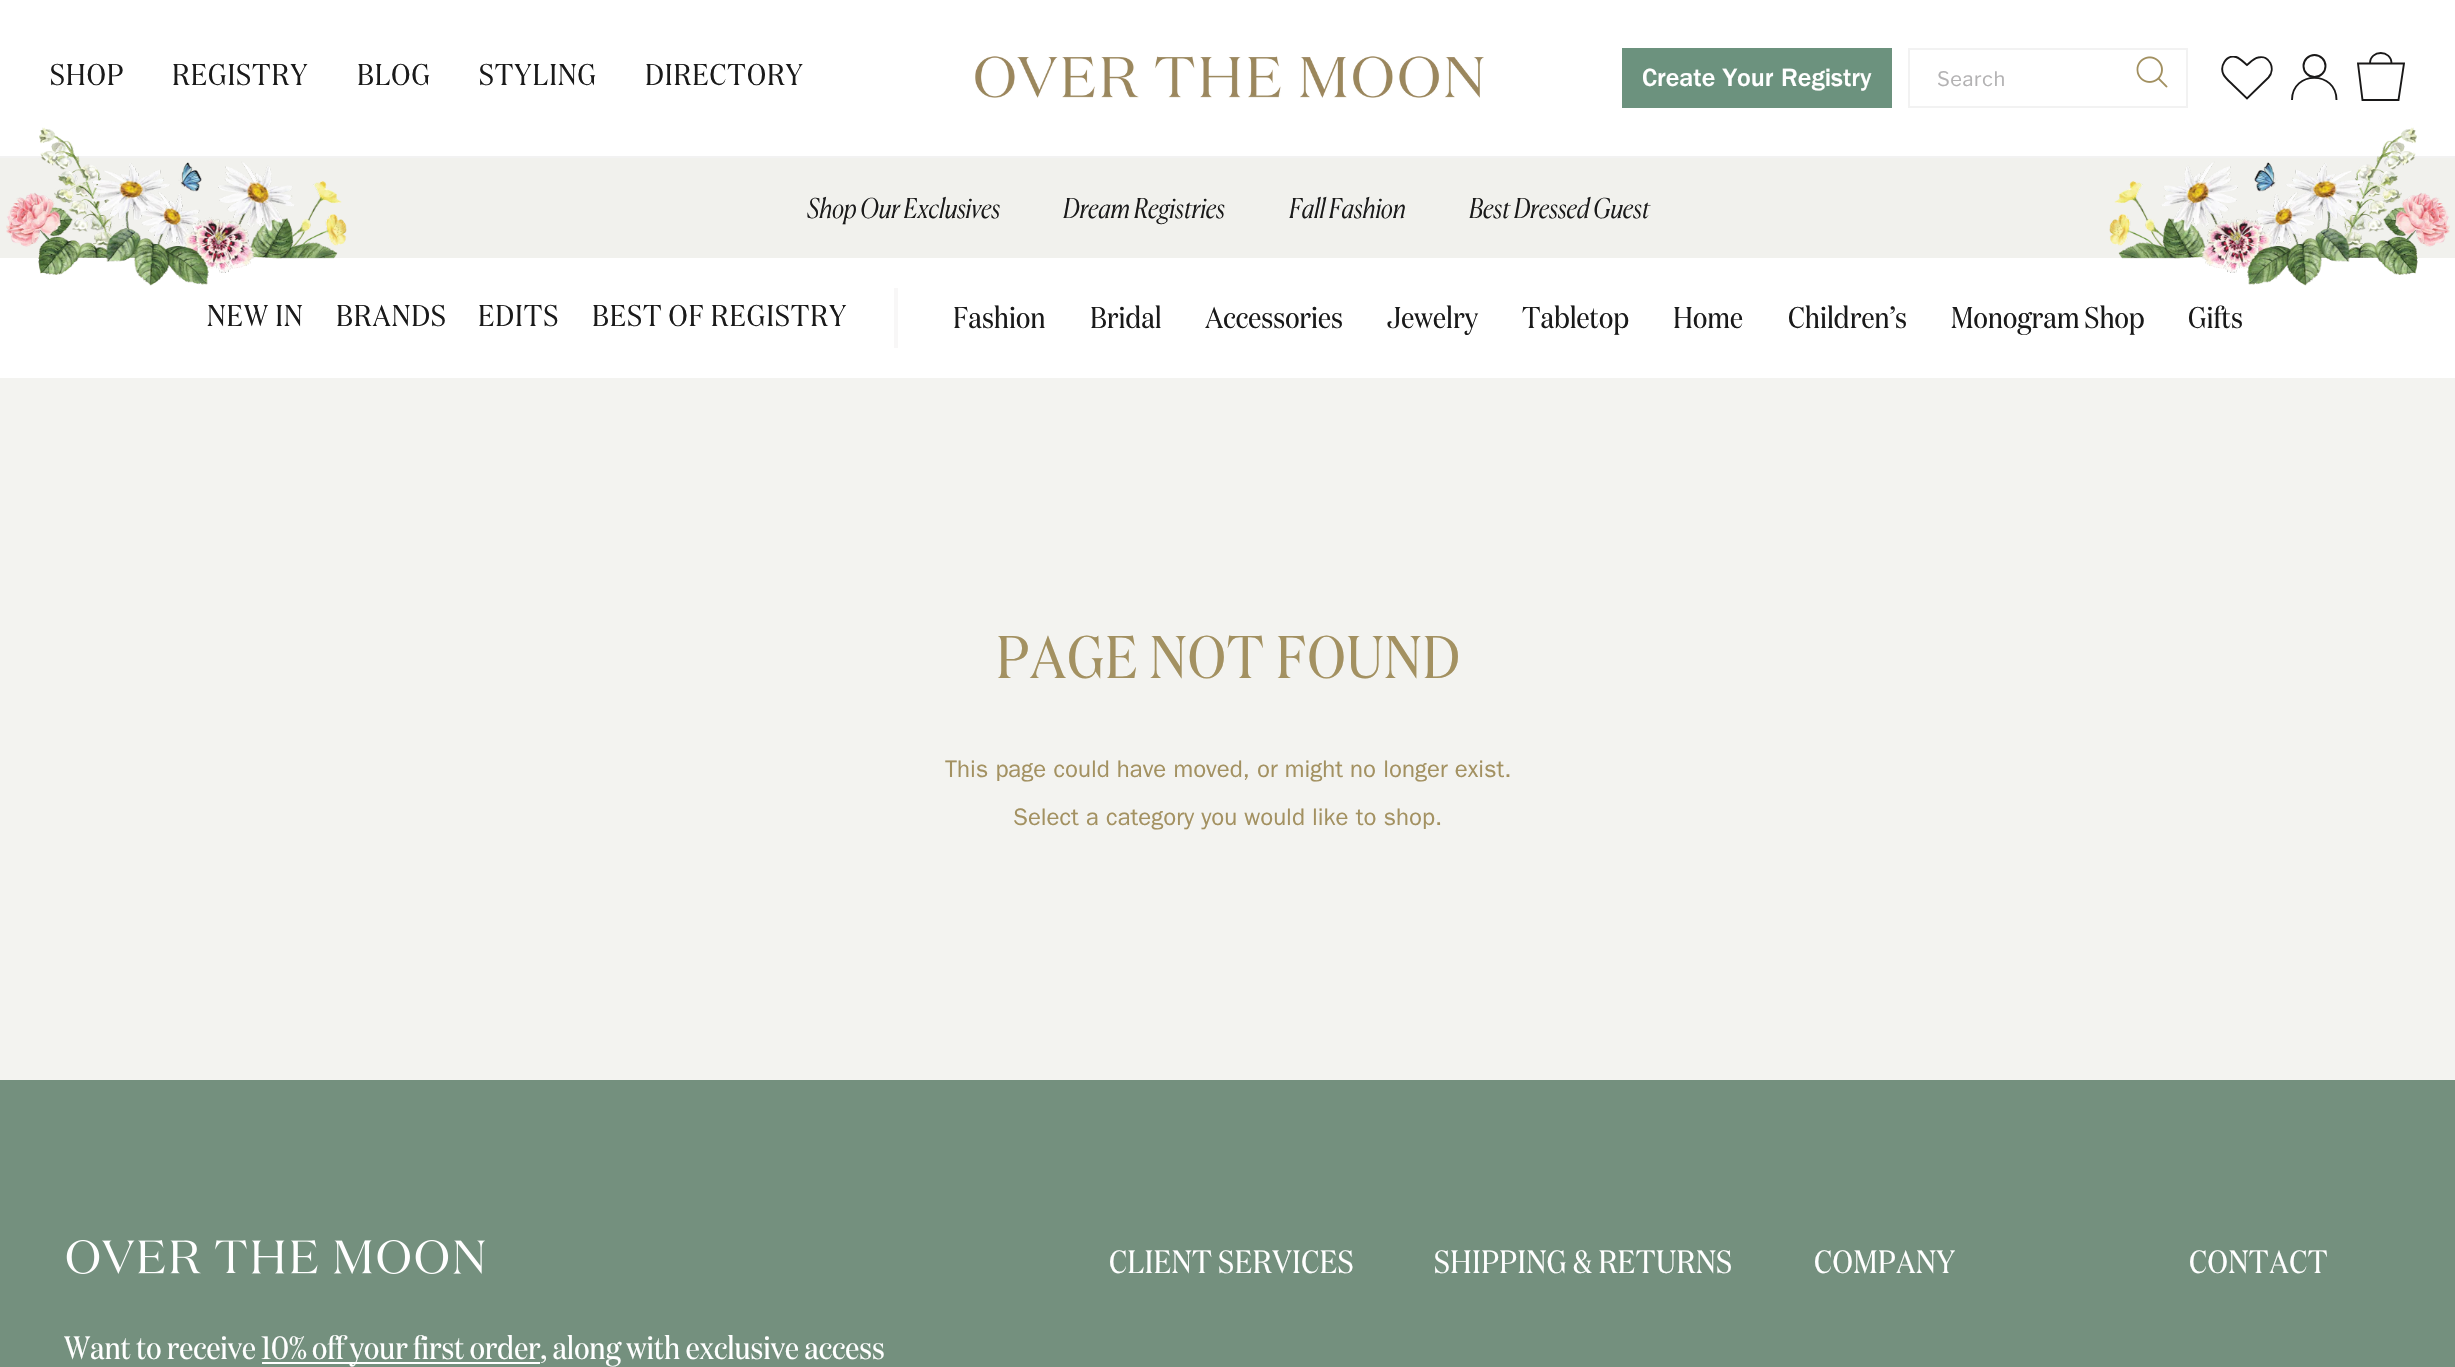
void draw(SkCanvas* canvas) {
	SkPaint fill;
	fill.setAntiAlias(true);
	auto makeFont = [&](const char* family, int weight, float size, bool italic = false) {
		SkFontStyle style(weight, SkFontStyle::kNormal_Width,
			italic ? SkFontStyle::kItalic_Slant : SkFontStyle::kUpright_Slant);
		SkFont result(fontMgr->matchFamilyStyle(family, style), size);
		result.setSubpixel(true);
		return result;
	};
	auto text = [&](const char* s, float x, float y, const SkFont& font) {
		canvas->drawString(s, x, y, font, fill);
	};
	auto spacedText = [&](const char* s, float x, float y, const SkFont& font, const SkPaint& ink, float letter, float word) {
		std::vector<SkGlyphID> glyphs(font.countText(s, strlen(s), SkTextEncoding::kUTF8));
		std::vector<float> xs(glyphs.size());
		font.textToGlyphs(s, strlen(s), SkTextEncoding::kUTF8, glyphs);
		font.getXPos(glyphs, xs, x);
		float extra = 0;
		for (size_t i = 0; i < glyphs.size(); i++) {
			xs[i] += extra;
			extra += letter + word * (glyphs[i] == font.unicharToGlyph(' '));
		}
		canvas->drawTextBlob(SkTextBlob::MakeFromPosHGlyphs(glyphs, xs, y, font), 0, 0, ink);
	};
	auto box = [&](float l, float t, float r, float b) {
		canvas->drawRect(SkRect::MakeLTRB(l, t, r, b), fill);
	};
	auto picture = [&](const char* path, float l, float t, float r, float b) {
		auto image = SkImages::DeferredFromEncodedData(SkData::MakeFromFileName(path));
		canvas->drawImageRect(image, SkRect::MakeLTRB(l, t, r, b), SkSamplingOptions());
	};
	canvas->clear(0xFFFFFFFF);
	picture("image0.png", 975, 56, 1484, 98);
	fill.setColor(0xFF6C927E);
	box(1622, 48, 1892, 108);
	fill.setStyle(SkPaint::kStroke_Style);
	fill.setStrokeWidth(2);
	fill.setColor(0xFFF2F2F2);
	canvas->drawRect(SkRect::MakeLTRB(1909, 49, 2187, 107), fill);
	picture("image1.png", 2136, 56, 2168, 88);
	canvas->save();
	canvas->clipRect(SkRect::MakeLTRB(2220, 56, 2274, 100));
	fill.setStrokeWidth(1.9f);
	fill.setColor(0xFF191818);
	canvas->drawPath(SkPathBuilder().moveTo(2268.5f, 77.5f).lineTo(2247, 98.5f).lineTo(2232.5f, 84.5f).cubicTo(2229.5f, 81.5f, 2225.5f, 78.5f, 2223.5f, 74.5f).cubicTo(2219.5f, 66.5f, 2226, 54.5f, 2236, 57).cubicTo(2240.5f, 58.5f, 2243.5f, 62, 2247, 65).cubicTo(2250.5f, 62, 2253.5f, 58.5f, 2258, 57.5f).cubicTo(2269.5f, 54.5f, 2276, 69, 2268.5f, 77.5f).close().detach(), fill);
	canvas->restore();
	canvas->drawCircle(2314.5f, 66, 11, fill);
	canvas->drawPath(SkPathBuilder().moveTo(2292, 100).cubicTo(2292, 70.5f, 2336.5f, 70.5f, 2336.5f, 100).detach(), fill);
	canvas->drawPath(SkPathBuilder().moveTo(2398.5f, 100).lineTo(2362.5f, 100).lineTo(2358, 63.5f).lineTo(2404, 63.5f).close().moveTo(2370, 63.5f).cubicTo(2370, 49.5f, 2391.5f, 49.5f, 2391.5f, 63.5f).detach(), fill);
	fill.setStyle(SkPaint::kFill_Style);
	fill.setColor(0xFFF2F2F2);
	box(0, 156, 2455, 158);
	fill.setColor(0xFFF1F1ED);
	box(0, 158, 2455, 258);
	picture("image2.png", 6, 127, 347, 286);
	picture("image3.png", 2109, 127, 2450, 286);
	fill.setColor(0xFFF8F7F7);
	box(894, 288, 898, 348);
	fill.setColor(0xFFF3F3F0);
	box(0, 378, 2455, 1080);
	fill.setColor(0xFF74907E);
	box(0, 1080, 2455, 1367);
	picture("image4.png", 66, 1240, 485, 1274);
	fill.setColor(0xFFFFFFFF);
	box(262, 1362, 540, 1364);
	auto font1 = makeFont("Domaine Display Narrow", 400, 30);
	fill.setColor(0xFF1A1A1A);
	spacedText("SHOP", 50, 85, font1, fill, 1, 0);
	spacedText("REGISTRY", 172, 85, font1, fill, 1, 0);
	spacedText("BLOG", 357, 85, font1, fill, 1, 0);
	spacedText("STYLING", 479, 85, font1, fill, 1, 0);
	spacedText("DIRECTORY", 645, 85, font1, fill, 1, 0);
	auto font2 = makeFont("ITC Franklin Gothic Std", 500, 26);
	fill.setColor(0xFFFFFFFF);
	text("Create Your Registry", 1642, 86, font2);
	auto font3 = makeFont("Libre Franklin", 100, 20);
	fill.setColor(0xFFB3B2B3);
	spacedText("Search", 1937, 86, font3, fill, 0.5f, 0);
	auto font4 = makeFont("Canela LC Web", 300, 27.25f, true);
	fill.setColor(0xFF1A1A1A);
	text("Shop Our Exclusives", 807, 218, font4);
	text("Dream Registries", 1063, 218, font4);
	text("Fall Fashion", 1289, 218, font4);
	text("Best Dressed Guest", 1469, 218, font4);
	spacedText("NEW IN", 207, 326, font1, fill, 1, 0);
	spacedText("BRANDS", 336, 326, font1, fill, 1, 0);
	spacedText("EDITS", 478, 326, font1, fill, 1, 0);
	spacedText("BEST OF REGISTRY", 592, 326, font1, fill, 1, 0);
	text("Fashion", 953, 328, font1);
	text("Bridal", 1090, 328, font1);
	text("Accessories", 1205, 328, font1);
	text("Jewelry", 1387, 328, font1);
	text("Tabletop", 1522, 328, font1);
	text("Home", 1673, 328, font1);
	text("Children’s", 1788, 328, font1);
	text("Monogram Shop", 1951, 328, font1);
	text("Gifts", 2188, 328, font1);
	auto font5 = makeFont("Domaine Display Narrow", 400, 60);
	fill.setColor(0xFFA39161);
	spacedText("PAGE NOT FOUND", 996, 678, font5, fill, 1, 0);
	auto font6 = makeFont("ITC Franklin Gothic Std", 400, 24);
	text("This page could have moved, or might no longer exist.", 945, 777, font6);
	text("Select a category you would like to shop.", 1013, 825, font6);
	auto font7 = makeFont("Domaine Display Narrow", 400, 32);
	fill.setColor(0xFFFFFFFF);
	spacedText("CLIENT SERVICES", 1109, 1273, font7, fill, 0.6f, 0);
	spacedText("SHIPPING & RETURNS", 1434, 1273, font7, fill, 0.6f, 0);
	spacedText("COMPANY", 1814, 1273, font7, fill, 0.6f, 0);
	spacedText("CONTACT", 2189, 1273, font7, fill, 0.6f, 0);
	text("Want to receive", 64, 1359, font7);
	text("10% off your first order, along with exclusive access", 261, 1359, font7);
}
